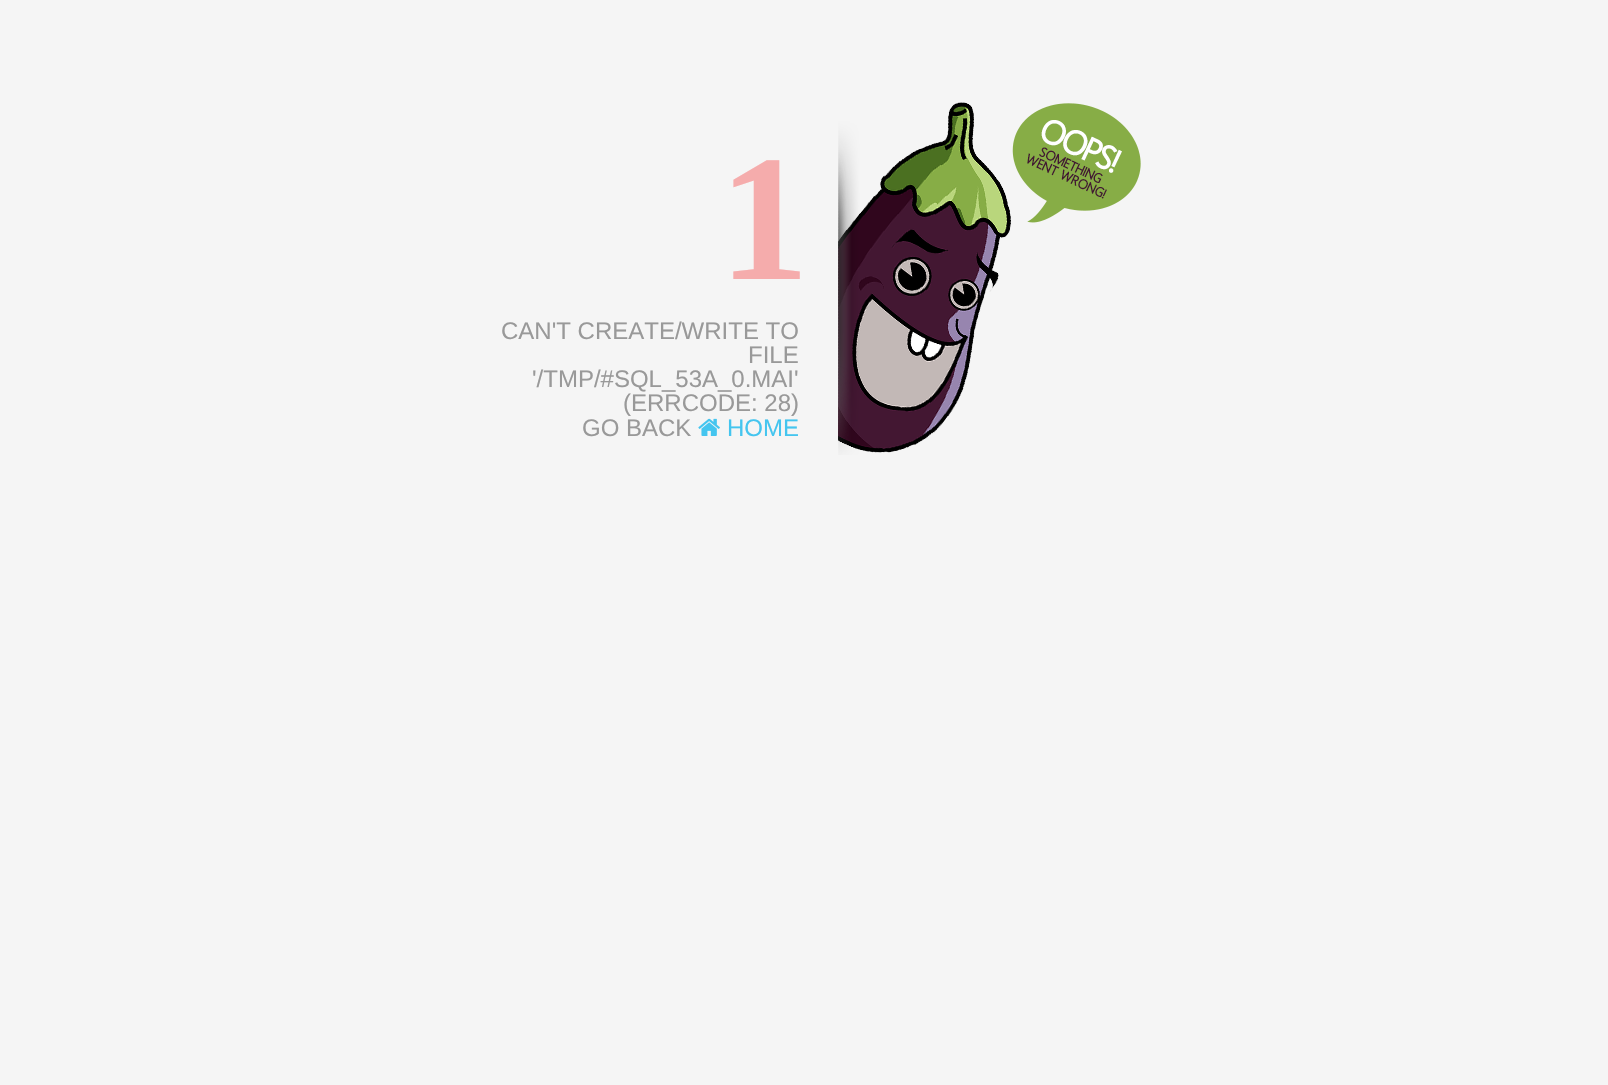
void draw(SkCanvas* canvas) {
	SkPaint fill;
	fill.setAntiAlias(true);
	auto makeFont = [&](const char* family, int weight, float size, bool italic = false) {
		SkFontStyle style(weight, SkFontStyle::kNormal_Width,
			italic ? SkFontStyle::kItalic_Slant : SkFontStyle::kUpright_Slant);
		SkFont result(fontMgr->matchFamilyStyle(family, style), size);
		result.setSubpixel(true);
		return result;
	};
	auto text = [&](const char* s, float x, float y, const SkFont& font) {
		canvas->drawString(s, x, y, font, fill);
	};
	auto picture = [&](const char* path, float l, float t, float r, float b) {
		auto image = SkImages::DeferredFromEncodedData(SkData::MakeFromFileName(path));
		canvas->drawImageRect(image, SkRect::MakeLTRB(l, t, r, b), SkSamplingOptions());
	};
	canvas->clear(0xFFF5F5F5);
	picture("image0.png", 838, 102, 1141, 455);
	picture("image1.png", 698, 418, 720, 436);
	auto font1 = makeFont("Liberation Serif", 700, 180);
	fill.setColor(0xFFF5ACAC);
	text("1", 719, 279, font1);
	auto font2 = makeFont("Liberation Sans", 400, 24);
	fill.setColor(0xFF999999);
	text("CAN'T CREATE/WRITE TO", 501, 339, font2);
	text("FILE", 748, 363, font2);
	text("'/TMP/#SQL_53A_0.MAI'", 532, 387, font2);
	text("(ERRCODE: 28)", 623, 411, font2);
	text("GO BACK", 582, 436, font2);
	fill.setColor(0xFF44C5EF);
	text("HOME", 727, 436, font2);
}
